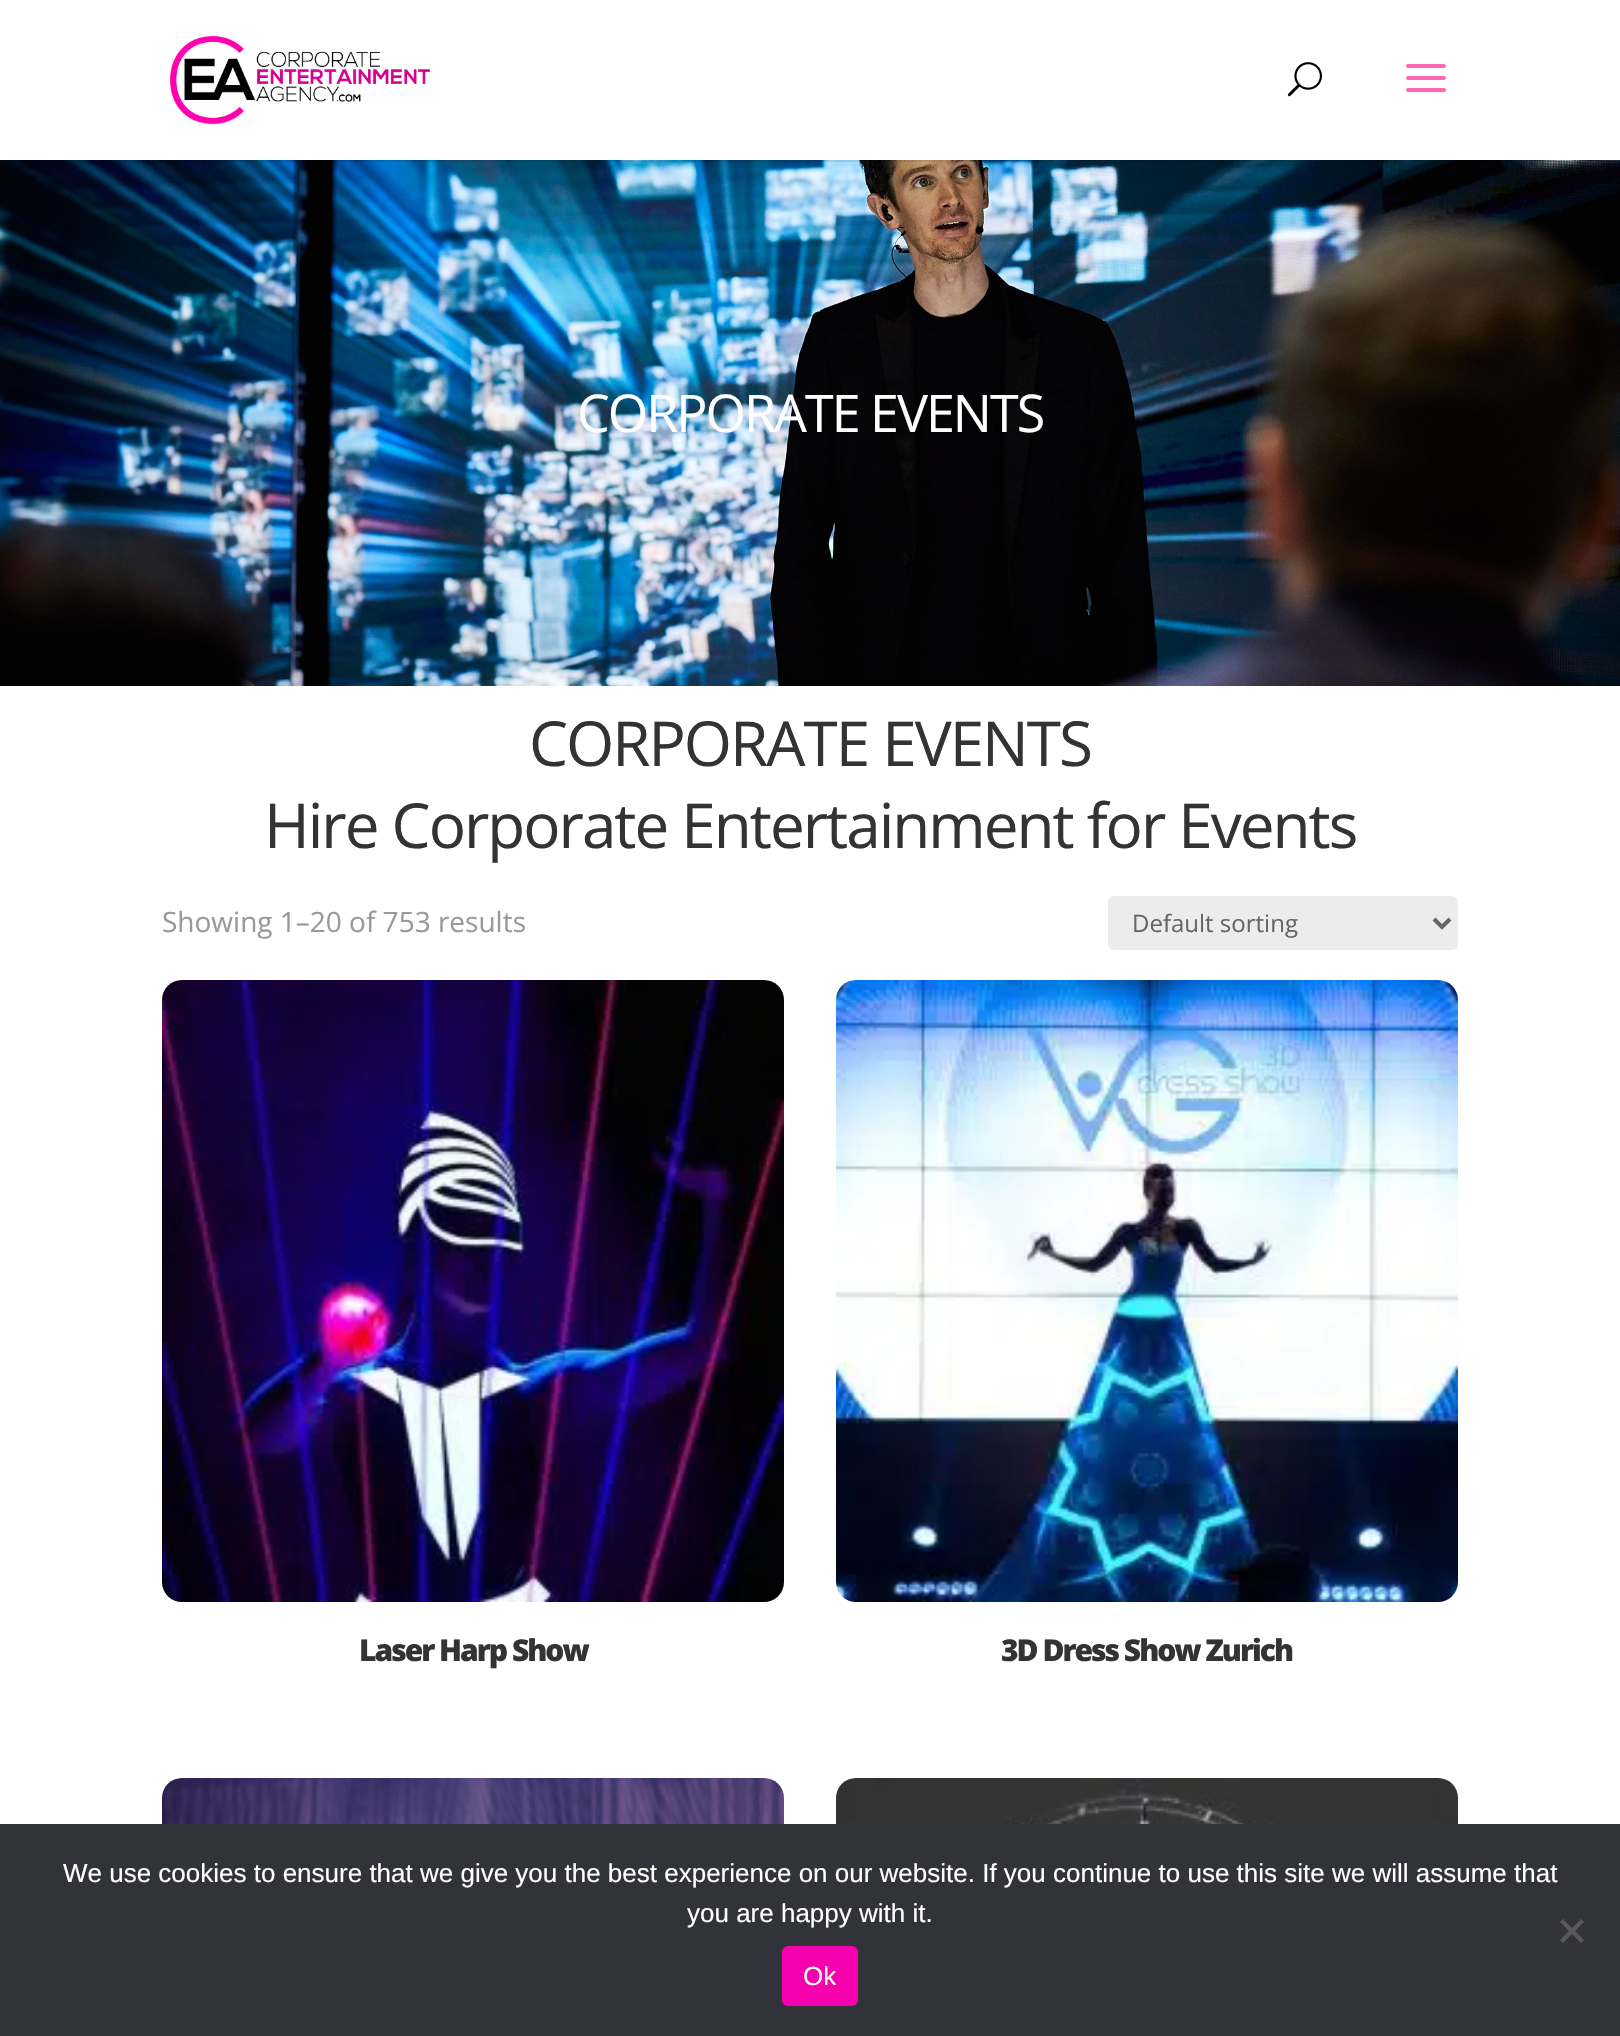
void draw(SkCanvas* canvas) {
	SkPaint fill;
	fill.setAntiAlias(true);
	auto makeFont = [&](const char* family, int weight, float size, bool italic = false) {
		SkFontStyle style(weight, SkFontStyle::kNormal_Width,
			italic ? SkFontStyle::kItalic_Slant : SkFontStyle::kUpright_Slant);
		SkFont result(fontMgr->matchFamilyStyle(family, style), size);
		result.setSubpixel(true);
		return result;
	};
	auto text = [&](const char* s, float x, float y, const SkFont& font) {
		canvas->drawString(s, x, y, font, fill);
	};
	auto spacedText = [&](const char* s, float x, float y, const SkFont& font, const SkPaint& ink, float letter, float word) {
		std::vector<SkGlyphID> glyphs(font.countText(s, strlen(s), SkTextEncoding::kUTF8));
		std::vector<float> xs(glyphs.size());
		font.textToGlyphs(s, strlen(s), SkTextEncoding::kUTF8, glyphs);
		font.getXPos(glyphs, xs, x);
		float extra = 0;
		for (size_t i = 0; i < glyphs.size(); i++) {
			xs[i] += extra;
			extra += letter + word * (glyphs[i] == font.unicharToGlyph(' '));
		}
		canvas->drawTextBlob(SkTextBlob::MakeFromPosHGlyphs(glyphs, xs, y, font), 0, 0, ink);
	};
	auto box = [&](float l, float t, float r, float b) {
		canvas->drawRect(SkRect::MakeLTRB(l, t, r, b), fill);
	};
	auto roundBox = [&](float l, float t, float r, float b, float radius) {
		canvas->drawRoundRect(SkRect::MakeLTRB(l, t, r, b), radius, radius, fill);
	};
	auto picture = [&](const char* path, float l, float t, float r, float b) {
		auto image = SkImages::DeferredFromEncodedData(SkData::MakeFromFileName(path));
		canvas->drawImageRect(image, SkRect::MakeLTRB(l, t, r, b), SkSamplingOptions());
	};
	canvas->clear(0xFFFFFFFF);
	picture("image3.png", 0, 160, 1620, 686);
	fill.setColor(0x1A000000);
	box(0, 160, 1620, 162);
	picture("image0.png", 170, 36, 430, 124);
	picture("image1.png", 1287, 62, 1322, 97);
	picture("image2.png", 1406, 64, 1446, 92);
	fill.setColor(0xFFECECEC);
	roundBox(1108, 896, 1458, 950, 6);
	fill.setStyle(SkPaint::kStroke_Style);
	fill.setStrokeWidth(4);
	fill.setColor(0xFF666666);
	canvas->drawPath(SkPathBuilder().moveTo(1434, 919).lineTo(1442, 927).lineTo(1450, 919).detach(), fill);
	picture("image4.png", 162, 980, 784, 1602);
	picture("image5.png", 836, 980, 1458, 1602);
	picture("image6.png", 162, 1778, 784, 1824);
	picture("image7.png", 836, 1778, 1458, 1824);
	fill.setStyle(SkPaint::kFill_Style);
	fill.setColor(0xFF32323A);
	box(0, 1824, 1620, 2036);
	fill.setColor(0xFF59595D);
	canvas->drawPath(SkPathBuilder().moveTo(1581, 1919).lineTo(1584, 1922).lineTo(1563, 1943).lineTo(1560, 1940).close().detach(), fill);
	canvas->drawPath(SkPathBuilder().moveTo(1560, 1922).lineTo(1563, 1919).lineTo(1584, 1940).lineTo(1581, 1943).close().detach(), fill);
	fill.setColor(0xFFF700AD);
	roundBox(782, 1946, 858, 2006, 6);
	auto font1 = makeFont("Open Sans", 400, 52);
	fill.setColor(0xFFFFFFFF);
	spacedText("CORPORATE EVENTS", 577, 432, font1, fill, -2, 0);
	auto font2 = makeFont("Open Sans", 400, 62);
	fill.setColor(0xFF333333);
	spacedText("CORPORATE EVENTS", 529, 766, font2, fill, -2, 0);
	spacedText("Hire Corporate Entertainment for Events", 264, 848, font2, fill, -2, 0);
	auto font3 = makeFont("Open Sans", 400, 28);
	fill.setColor(0xFF999999);
	text("Showing 1–20 of 753 results", 162, 932, font3);
	auto font4 = makeFont("Open Sans", 400, 24);
	fill.setColor(0xFF666666);
	text("Default sorting", 1132, 932, font4);
	auto font5 = makeFont("Open Sans", 800, 30);
	fill.setColor(0xFF333333);
	spacedText("Laser Harp Show", 359, 1661, font5, fill, -2, 0);
	spacedText("3D Dress Show Zurich", 1001, 1661, font5, fill, -2, 0);
	auto font6 = makeFont("Liberation Sans", 400, 26);
	fill.setColor(0xFFFFFFFF);
	text("We use cookies to ensure that we give you the best experience on our website. If you continue to use this site we will assume that", 63, 1882, font6);
	text("you are happy with it.", 687, 1922, font6);
	text("Ok", 803, 1985, font6);
}
